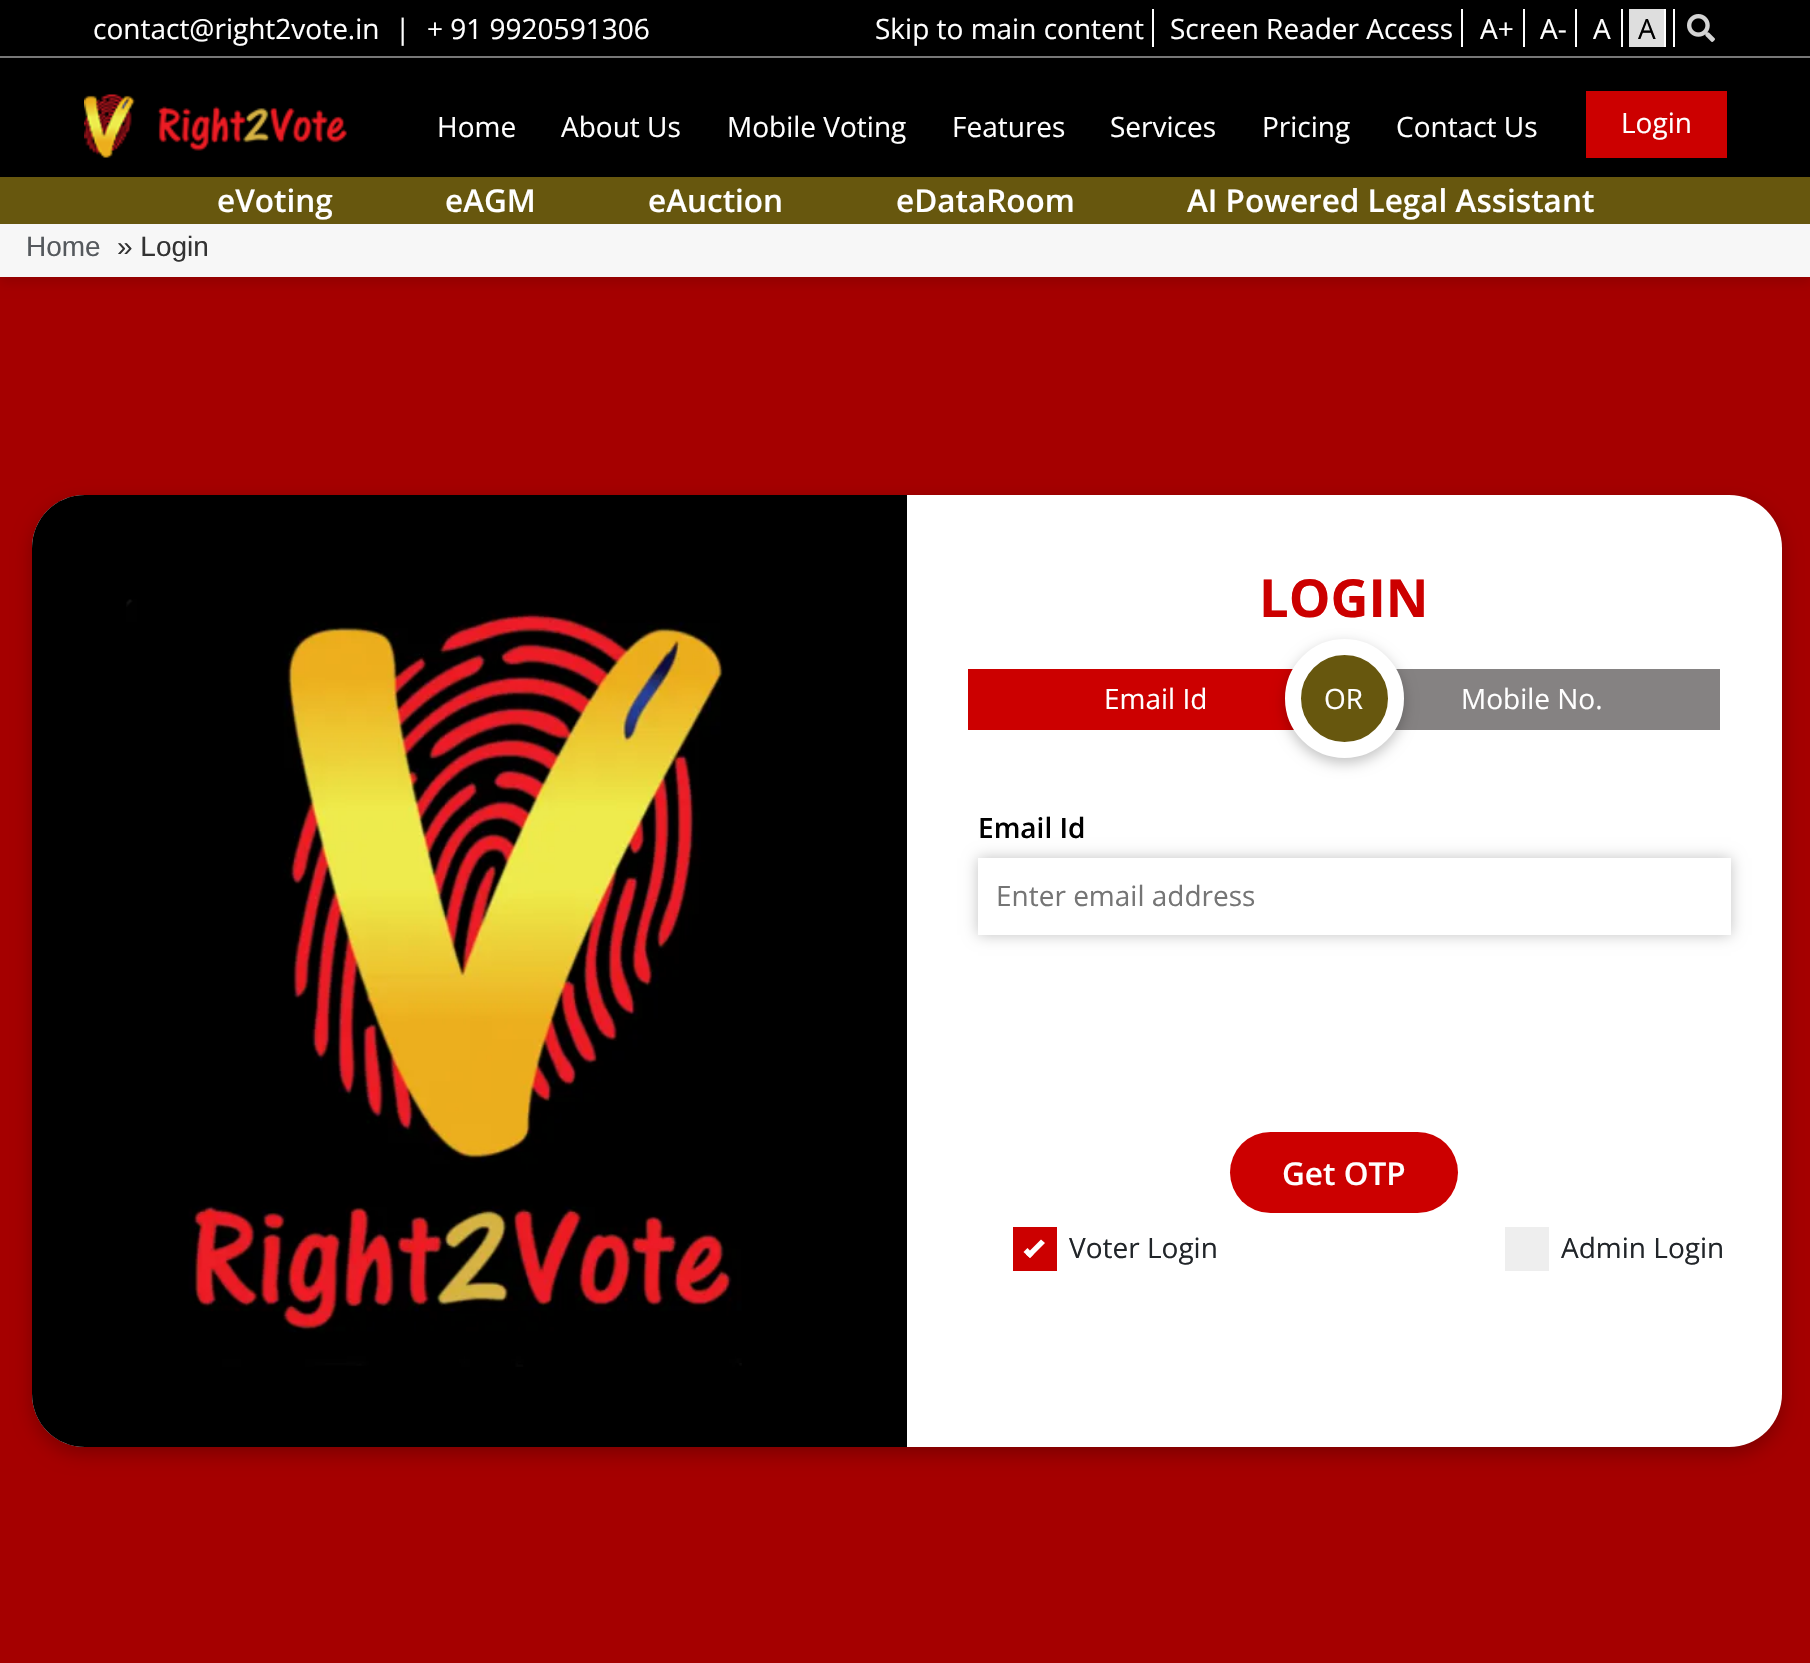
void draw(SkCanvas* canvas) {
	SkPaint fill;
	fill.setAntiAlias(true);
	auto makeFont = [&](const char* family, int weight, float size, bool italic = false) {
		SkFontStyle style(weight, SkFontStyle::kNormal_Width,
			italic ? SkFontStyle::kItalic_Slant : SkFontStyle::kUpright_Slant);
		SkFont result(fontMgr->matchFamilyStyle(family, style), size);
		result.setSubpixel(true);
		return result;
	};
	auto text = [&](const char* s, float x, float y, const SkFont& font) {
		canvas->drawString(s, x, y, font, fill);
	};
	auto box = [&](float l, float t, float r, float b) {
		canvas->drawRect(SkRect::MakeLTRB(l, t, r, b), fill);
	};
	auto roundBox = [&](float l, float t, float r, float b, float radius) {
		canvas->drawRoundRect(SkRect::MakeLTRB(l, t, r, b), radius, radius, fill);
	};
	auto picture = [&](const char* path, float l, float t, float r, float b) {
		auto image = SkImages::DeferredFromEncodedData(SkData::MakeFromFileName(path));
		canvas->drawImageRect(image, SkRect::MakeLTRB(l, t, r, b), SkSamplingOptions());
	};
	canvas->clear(0xFFA50000);
	fill.setColor(0xFF000000);
	box(0, 0, 1810, 177);
	fill.setColor(0xFF777777);
	box(0, 56, 1810, 58);
	fill.setColor(0xFFFFFFFF);
	box(1152, 9, 1154, 47);
	box(1461, 9, 1463, 47);
	box(1523, 9, 1525, 47);
	box(1575, 9, 1577, 47);
	box(1621, 9, 1623, 47);
	fill.setColor(0xFFDEDEDE);
	box(1629, 9, 1664, 47);
	fill.setColor(0xFFFFFFFF);
	box(1664, 9, 1666, 47);
	box(1673, 9, 1675, 47);
	picture("image0.png", 1687, 14, 1715, 42);
	picture("image1.png", 84, 94, 347, 158);
	fill.setColor(0xFFCC0000);
	box(1586, 91, 1727, 158);
	fill.setColor(0x1A000000);
	fill.setMaskFilter(SkMaskFilter::MakeBlur(kNormal_SkBlurStyle, 5));
	canvas->drawRect(SkRect::MakeLTRB(0, 224, 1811, 284), fill);
	fill.setMaskFilter(nullptr);
	fill.setColor(0xFF67570E);
	box(0, 177, 1810, 224);
	fill.setColor(0xFFF7F7F7);
	box(0, 224, 1810, 277);
	fill.setColor(0x40000000);
	fill.setMaskFilter(SkMaskFilter::MakeBlur(kNormal_SkBlurStyle, 9.5f));
	canvas->drawRoundRect(SkRect::MakeLTRB(32, 502, 1782, 1454), 53, 53, fill);
	fill.setMaskFilter(nullptr);
	fill.setColor(0xFFFFFFFF);
	roundBox(32, 495, 1782, 1447, 53);
	fill.setColor(0xFF000000);
	canvas->drawPath(SkPathBuilder().moveTo(85, 495).lineTo(907, 495).lineTo(907, 1447).lineTo(85, 1447).cubicTo(55.5f, 1447, 32, 1423.5f, 32, 1394).lineTo(32, 548).cubicTo(32, 518.5f, 55.5f, 495, 85, 495).close().detach(), fill);
	picture("image2.png", 126, 599, 742, 1367);
	fill.setColor(0xFFCC0000);
	box(968, 669, 1294, 730);
	fill.setColor(0xFF858282);
	box(1394, 669, 1720, 730);
	fill.setColor(0x3D000000);
	fill.setMaskFilter(SkMaskFilter::MakeBlur(kNormal_SkBlurStyle, 7));
	canvas->drawRoundRect(SkRect::MakeLTRB(1285, 644, 1404, 763), 59.5f, 59.5f, fill);
	fill.setMaskFilter(nullptr);
	fill.setColor(0xFF67570E);
	canvas->drawCircle(1344.5f, 698.5f, 51.5f, fill);
	fill.setStyle(SkPaint::kStroke_Style);
	fill.setStrokeWidth(16);
	fill.setColor(0xFFFFFFFF);
	canvas->drawCircle(1344.5f, 698.5f, 51.5f, fill);
	fill.setStyle(SkPaint::kFill_Style);
	fill.setColor(0x3D000000);
	fill.setMaskFilter(SkMaskFilter::MakeBlur(kNormal_SkBlurStyle, 7));
	canvas->drawRect(SkRect::MakeLTRB(978, 858, 1731, 935), fill);
	fill.setMaskFilter(nullptr);
	fill.setColor(0xFFFFFFFF);
	box(978, 858, 1731, 935);
	fill.setColor(0xFFCC0000);
	roundBox(1230, 1132, 1458, 1213, 40.5f);
	box(1013, 1227, 1057, 1271);
	fill.setColor(0xFFFFFFFF);
	canvas->drawPath(SkPathBuilder().moveTo(1041, 1239.5f).lineTo(1045, 1243).lineTo(1030, 1258).lineTo(1026, 1254.5f).close().detach(), fill);
	canvas->drawPath(SkPathBuilder().moveTo(1027.5f, 1248).lineTo(1033.5f, 1254.5f).lineTo(1030, 1258).lineTo(1023.5f, 1252).close().detach(), fill);
	fill.setColor(0xFFEEEEEE);
	box(1505, 1227, 1549, 1271);
	auto font1 = makeFont("Open Sans", 400, 28);
	fill.setColor(0xFFFFFFFF);
	text("contact@right2vote.in", 93, 39, font1);
	text("|", 395, 39, font1);
	text("+ 91 9920591306", 427, 39, font1);
	text("Skip to main content", 875, 39, font1);
	text("Screen Reader Access", 1170, 39, font1);
	text("A+", 1480, 39, font1);
	text("A-", 1540, 39, font1);
	text("A", 1593, 39, font1);
	fill.setColor(0xFF000000);
	text("A", 1638, 39, font1);
	fill.setColor(0xFFFFFFFF);
	text("Home", 437, 137, font1);
	text("About Us", 561, 137, font1);
	text("Mobile Voting", 727, 137, font1);
	text("Features", 952, 137, font1);
	text("Services", 1110, 137, font1);
	text("Pricing", 1262, 137, font1);
	text("Contact Us", 1396, 137, font1);
	text("Login", 1621, 133, font1);
	auto font2 = makeFont("Open Sans", 600, 31.5f);
	text("eVoting", 217, 212, font2);
	text("eAGM", 445, 212, font2);
	text("eAuction", 648, 212, font2);
	text("eDataRoom", 896, 212, font2);
	text("AI Powered Legal Assistant", 1187, 212, font2);
	auto font3 = makeFont("Liberation Sans", 400, 28);
	fill.setColor(0xFF55595D);
	text("Home", 26, 256, font3);
	fill.setColor(0xFF333333);
	text("» Login", 117, 256, font3);
	auto font4 = makeFont("Open Sans", 700, 52.5f);
	fill.setColor(0xFFCC0000);
	text("LOGIN", 1259, 617, font4);
	fill.setColor(0xFFFFFFFF);
	text("Email Id", 1104, 709, font1);
	text("OR", 1324, 709, font1);
	text("Mobile No.", 1461, 709, font1);
	auto font5 = makeFont("Open Sans", 600, 28);
	fill.setColor(0xFF000000);
	text("Email Id", 978, 838, font5);
	fill.setColor(0xFF757575);
	text("Enter email address", 996, 906, font1);
	fill.setColor(0xFFFFFFFF);
	text("Get OTP", 1282, 1185, font2);
	fill.setColor(0xFF212529);
	text("Voter Login", 1069, 1258, font1);
	text("Admin Login", 1561, 1258, font1);
}
